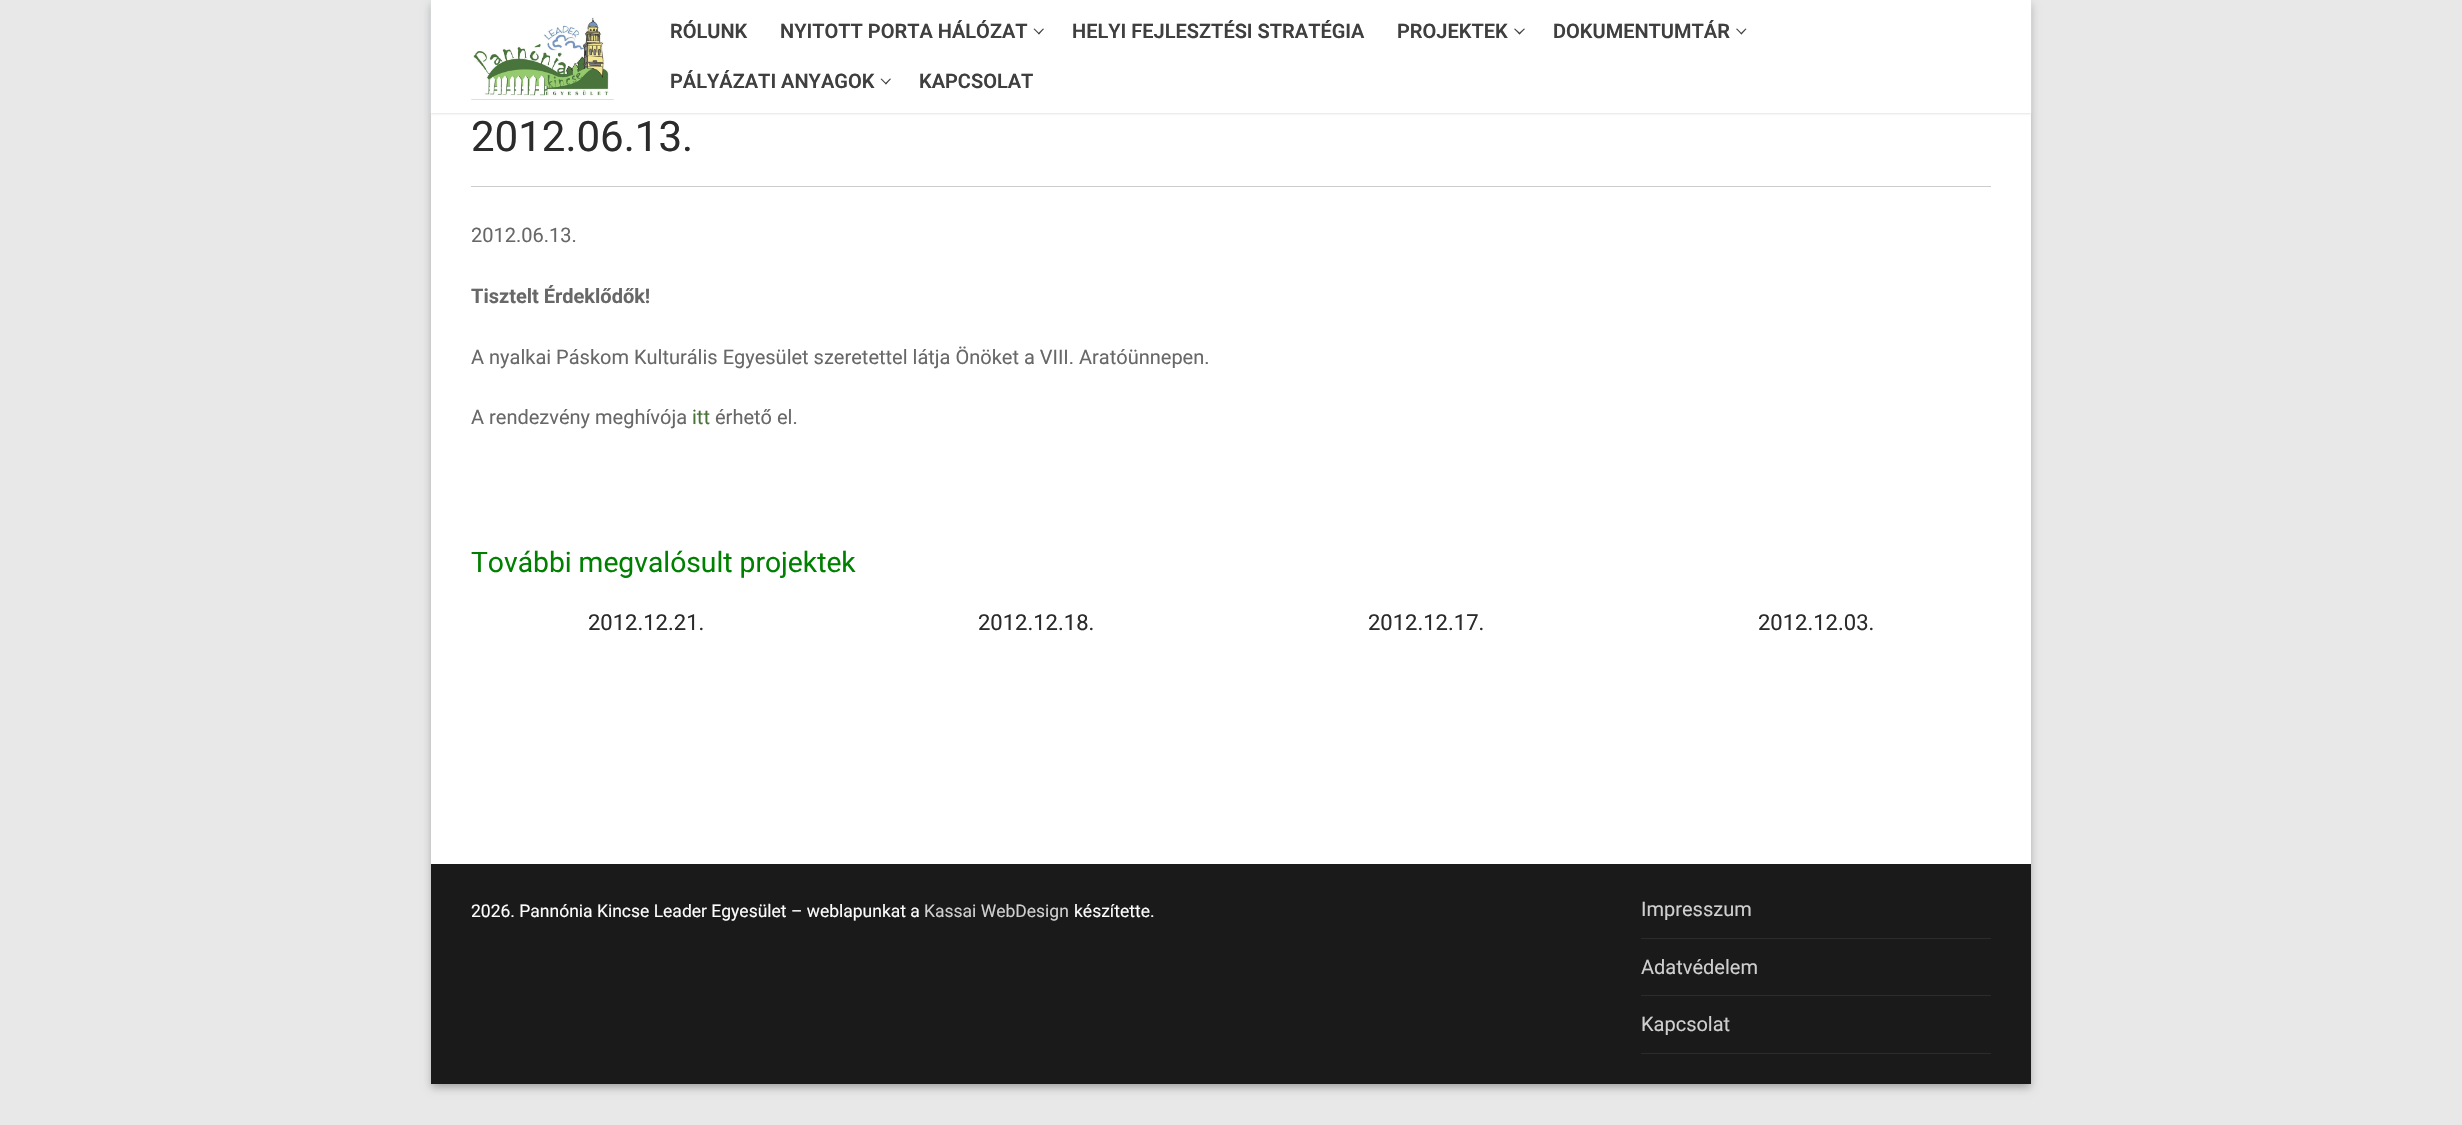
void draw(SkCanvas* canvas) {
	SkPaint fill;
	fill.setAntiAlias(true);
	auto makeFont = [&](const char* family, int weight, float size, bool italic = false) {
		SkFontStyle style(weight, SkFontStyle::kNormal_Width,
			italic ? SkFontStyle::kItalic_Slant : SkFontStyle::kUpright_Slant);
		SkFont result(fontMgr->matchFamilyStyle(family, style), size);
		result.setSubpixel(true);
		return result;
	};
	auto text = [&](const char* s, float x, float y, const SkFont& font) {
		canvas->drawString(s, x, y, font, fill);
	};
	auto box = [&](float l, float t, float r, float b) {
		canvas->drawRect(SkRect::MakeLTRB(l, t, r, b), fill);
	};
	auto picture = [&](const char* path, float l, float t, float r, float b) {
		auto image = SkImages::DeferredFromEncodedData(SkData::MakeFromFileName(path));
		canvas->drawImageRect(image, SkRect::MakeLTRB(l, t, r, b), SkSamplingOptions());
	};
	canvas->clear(0xFFE8E8E8);
	fill.setColor(0x3B000000);
	fill.setMaskFilter(SkMaskFilter::MakeBlur(kNormal_SkBlurStyle, 4));
	canvas->drawRect(SkRect::MakeLTRB(431, 4, 2031, 1088), fill);
	fill.setMaskFilter(nullptr);
	fill.setColor(0x29000000);
	fill.setMaskFilter(SkMaskFilter::MakeBlur(kNormal_SkBlurStyle, 4));
	canvas->drawRect(SkRect::MakeLTRB(436, 9, 2026, 1083), fill);
	fill.setMaskFilter(nullptr);
	fill.setColor(0xFFFFFFFF);
	box(431, 113, 2031, 864);
	fill.setColor(0xFFE1E5EA);
	fill.setMaskFilter(SkMaskFilter::MakeBlur(kNormal_SkBlurStyle, 1));
	canvas->drawRect(SkRect::MakeLTRB(431, 1, 2031, 114), fill);
	fill.setMaskFilter(nullptr);
	fill.setColor(0xFFFFFFFF);
	box(431, 0, 2031, 113);
	picture("image0.png", 471, 17, 614, 100);
	fill.setColor(0xFF3F3F3F);
	canvas->drawPath(SkPathBuilder().moveTo(1039, 34.5f).lineTo(1033.5f, 29).lineTo(1034.5f, 28.5f).lineTo(1039.5f, 33.5f).close().detach(), fill);
	canvas->drawPath(SkPathBuilder().moveTo(1039, 34.5f).lineTo(1038, 33.5f).lineTo(1043, 28.5f).lineTo(1044, 29).close().detach(), fill);
	canvas->drawPath(SkPathBuilder().moveTo(1519.5f, 34.5f).lineTo(1514, 29).lineTo(1515, 28.5f).lineTo(1520.5f, 33.5f).close().detach(), fill);
	canvas->drawPath(SkPathBuilder().moveTo(1519.5f, 34.5f).lineTo(1518.5f, 33.5f).lineTo(1524, 28.5f).lineTo(1525, 29).close().detach(), fill);
	canvas->drawPath(SkPathBuilder().moveTo(1741.5f, 34.5f).lineTo(1736, 29).lineTo(1737, 28.5f).lineTo(1742, 33.5f).close().detach(), fill);
	canvas->drawPath(SkPathBuilder().moveTo(1741.5f, 34.5f).lineTo(1740.5f, 33.5f).lineTo(1745.5f, 28.5f).lineTo(1746.5f, 29).close().detach(), fill);
	canvas->drawPath(SkPathBuilder().moveTo(886, 84.5f).lineTo(880.5f, 79).lineTo(881.5f, 78.5f).lineTo(886.5f, 83.5f).close().detach(), fill);
	canvas->drawPath(SkPathBuilder().moveTo(886, 84.5f).lineTo(885, 83.5f).lineTo(890, 78.5f).lineTo(891, 79).close().detach(), fill);
	fill.setColor(0xFFCCCCCC);
	box(471, 186, 1991, 187);
	fill.setColor(0xFF1A1A1A);
	box(431, 864, 2031, 1084);
	fill.setColor(0xFF2C2C2C);
	box(1641, 938, 1991, 939);
	box(1641, 995, 1991, 996);
	box(1641, 1053, 1991, 1054);
	auto font1 = makeFont("Roboto", 600, 20);
	fill.setColor(0xFF3F3F3F);
	text("RÓLUNK", 670, 38, font1);
	text("NYITOTT PORTA HÁLÓZAT", 780, 38, font1);
	text("HELYI FEJLESZTÉSI STRATÉGIA", 1072, 38, font1);
	text("PROJEKTEK", 1397, 38, font1);
	text("DOKUMENTUMTÁR", 1553, 38, font1);
	text("PÁLYÁZATI ANYAGOK", 670, 88, font1);
	text("KAPCSOLAT", 919, 88, font1);
	auto font2 = makeFont("Roboto", 400, 42);
	fill.setColor(0xFF2B2B2B);
	text("2012.06.13.", 471, 151, font2);
	auto font3 = makeFont("Roboto", 400, 20);
	fill.setColor(0xFF686868);
	text("2012.06.13.", 471, 242, font3);
	auto font4 = makeFont("Roboto", 700, 20);
	text("Tisztelt Érdeklődők!", 471, 303, font4);
	text("A nyalkai Páskom Kulturális Egyesület szeretettel látja Önöket a VIII. Aratóünnepen.", 471, 364, font3);
	text("A rendezvény meghívója", 471, 424, font3);
	fill.setColor(0xFF4A7339);
	text("itt", 692, 424, font3);
	fill.setColor(0xFF686868);
	text("érhető el.", 715, 424, font3);
	auto font5 = makeFont("Roboto", 400, 28.25f);
	fill.setColor(0xFF008000);
	text("További megvalósult projektek", 471, 572, font5);
	auto font6 = makeFont("Roboto", 400, 22);
	fill.setColor(0xFF2B2B2B);
	text("2012.12.21.", 588, 630, font6);
	text("2012.12.18.", 978, 630, font6);
	text("2012.12.17.", 1368, 630, font6);
	text("2012.12.03.", 1758, 630, font6);
	auto font7 = makeFont("Roboto", 400, 17.5f);
	fill.setColor(0xFFFDFDFD);
	text("2026. Pannónia Kincse Leader Egyesület – weblapunkat a", 471, 917, font7);
	fill.setColor(0xFFCFCFCF);
	text("Kassai WebDesign", 924, 917, font7);
	fill.setColor(0xFFFDFDFD);
	text("készítette.", 1074, 917, font7);
	fill.setColor(0xFFCFCFCF);
	text("Impresszum", 1641, 916, font3);
	text("Adatvédelem", 1641, 974, font3);
	text("Kapcsolat", 1641, 1031, font3);
}
